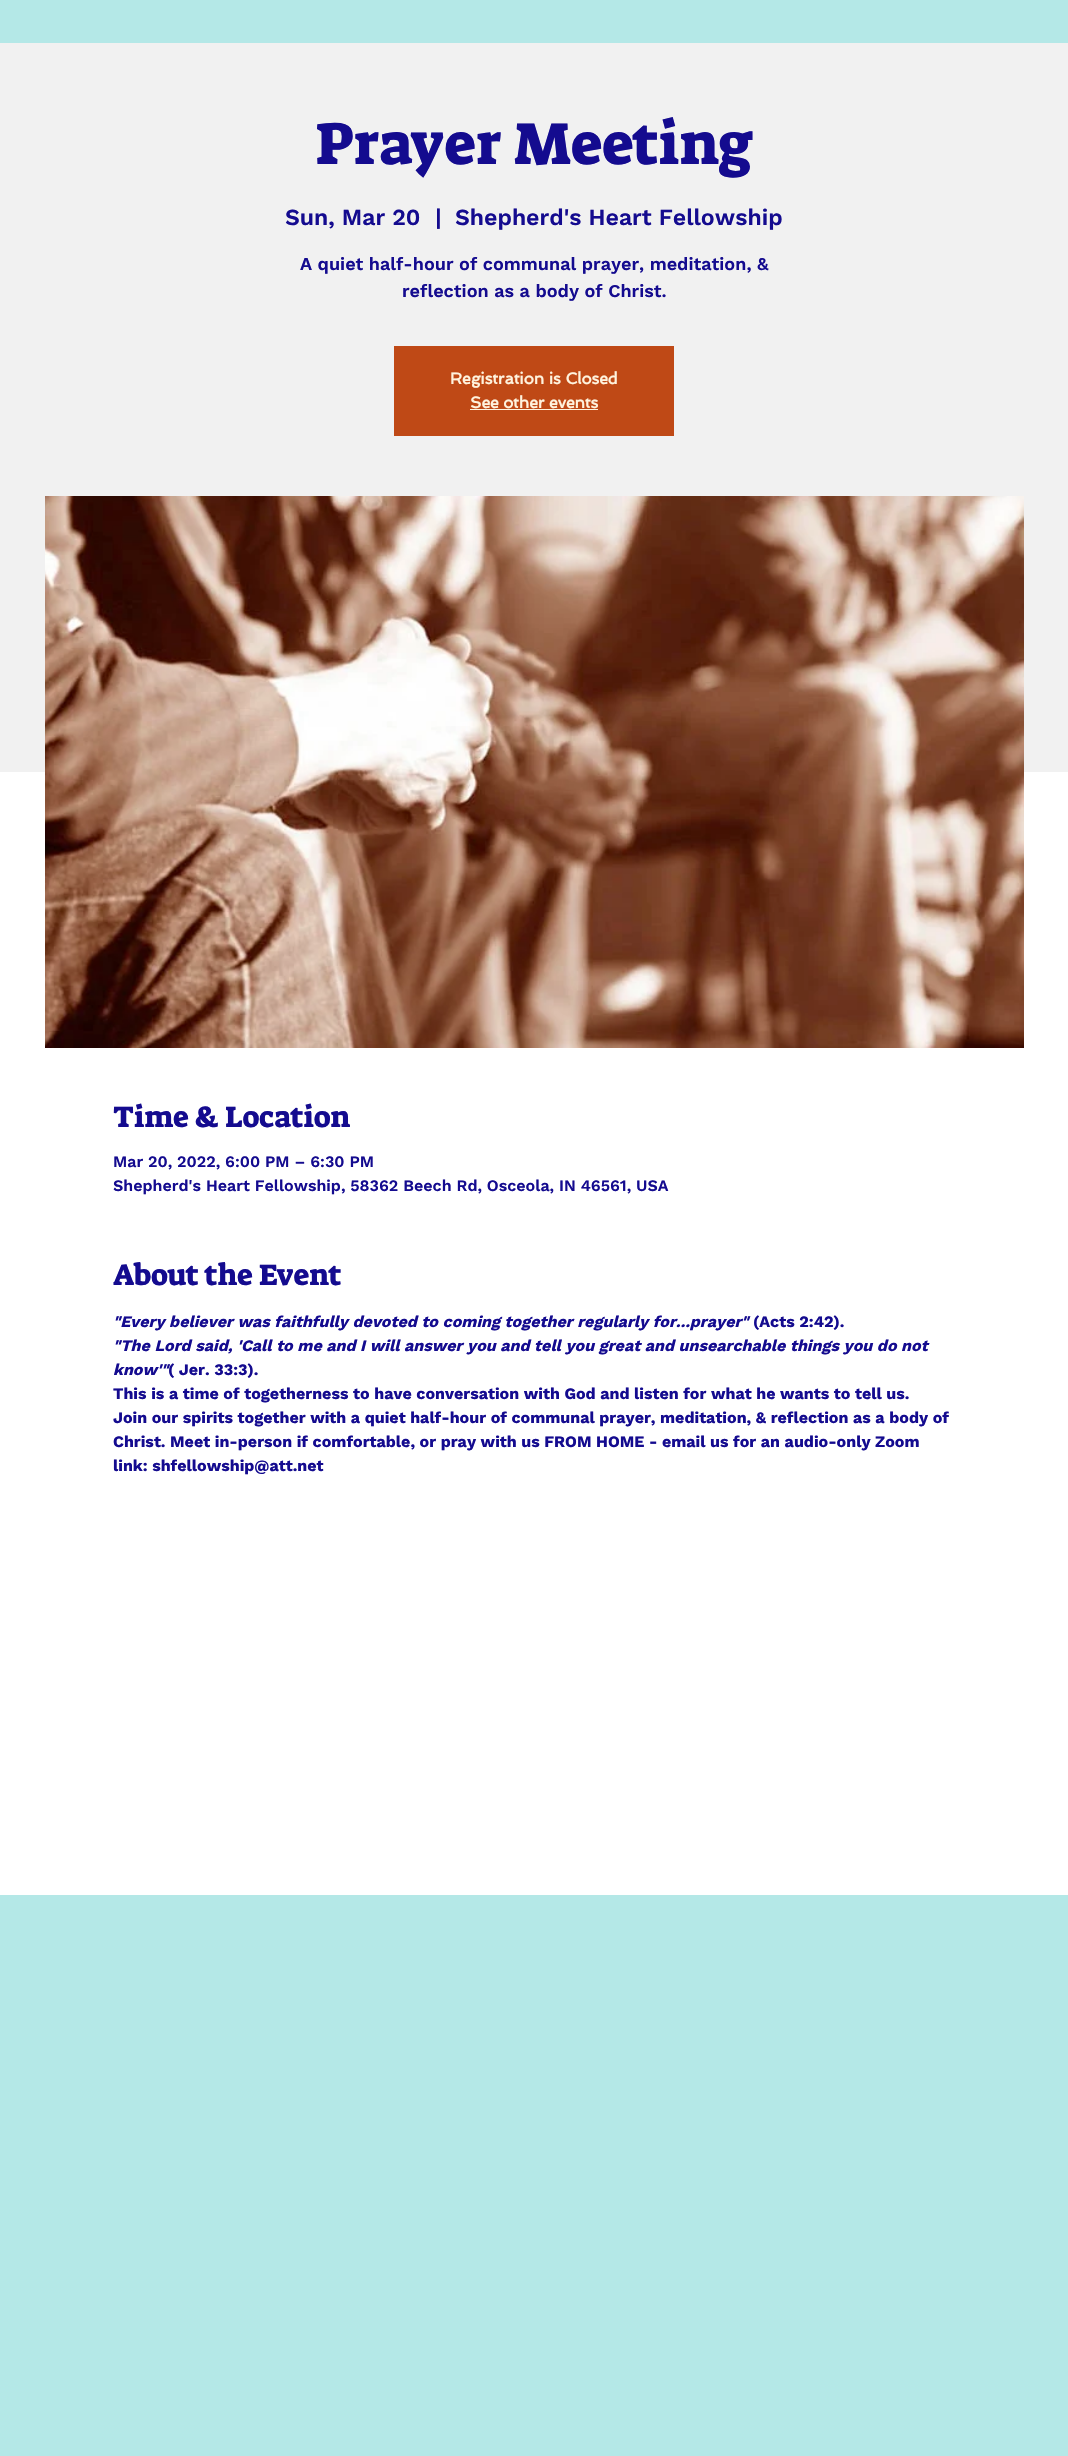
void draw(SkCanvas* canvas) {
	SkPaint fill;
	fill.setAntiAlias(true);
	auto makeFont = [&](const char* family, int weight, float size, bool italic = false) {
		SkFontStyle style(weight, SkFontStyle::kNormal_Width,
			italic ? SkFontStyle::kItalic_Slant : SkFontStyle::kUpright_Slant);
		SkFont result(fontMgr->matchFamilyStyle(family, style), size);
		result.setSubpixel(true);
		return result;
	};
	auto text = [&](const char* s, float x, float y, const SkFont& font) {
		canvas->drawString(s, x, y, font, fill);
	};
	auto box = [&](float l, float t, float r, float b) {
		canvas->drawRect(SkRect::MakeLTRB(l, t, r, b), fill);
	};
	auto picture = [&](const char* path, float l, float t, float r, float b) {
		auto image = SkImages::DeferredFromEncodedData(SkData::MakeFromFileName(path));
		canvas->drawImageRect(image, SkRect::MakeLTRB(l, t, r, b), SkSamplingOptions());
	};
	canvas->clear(0xFFB4E8E7);
	fill.setColor(0xFFF1F1F1);
	box(0, 43, 1068, 772);
	fill.setColor(0xFFBF4916);
	box(394, 346, 674, 436);
	fill.setColor(0xFFFFF3DE);
	box(470, 409, 598, 410);
	fill.setColor(0xFFFFFFFF);
	box(0, 772, 1068, 1895);
	picture("image0.png", 45, 496, 1024, 1048);
	auto font1 = makeFont("Suez One", 400, 60);
	fill.setColor(0xFF140B8F);
	text("Prayer Meeting", 315, 164, font1);
	auto font2 = makeFont("Work Sans", 600, 23);
	text("Sun, Mar 20", 285, 225, font2);
	text("|", 435, 225, font2);
	text("Shepherd's Heart Fellowship", 455, 225, font2);
	auto font3 = makeFont("Work Sans", 600, 18);
	text("A quiet half-hour of communal prayer, meditation, &", 300, 270, font3);
	text("reflection as a body of Christ.", 402, 297, font3);
	auto font4 = makeFont("Spinnaker", 700, 16);
	fill.setColor(0xFFFFF3DE);
	text("Registration is Closed", 450, 384, font4);
	text("See other events", 470, 408, font4);
	auto font5 = makeFont("Suez One", 400, 30);
	fill.setColor(0xFF140B8F);
	text("Time & Location", 113, 1127, font5);
	auto font6 = makeFont("Work Sans", 600, 16);
	text("Mar 20, 2022, 6:00 PM – 6:30 PM", 113, 1167, font6);
	text("Shepherd's Heart Fellowship, 58362 Beech Rd, Osceola, IN 46561, USA", 113, 1191, font6);
	text("About the Event", 113, 1285, font5);
	auto font7 = makeFont("Work Sans", 700, 16, true);
	text("\"Every believer was faithfully devoted to coming together regularly for...prayer\"", 113, 1327, font7);
	auto font8 = makeFont("Work Sans", 700, 16);
	text("(Acts 2:42).", 753, 1327, font8);
	text("\"The Lord said, 'Call to me and I will answer you and tell you great and unsearchable things you do not", 113, 1351, font7);
	text("know'\"", 113, 1375, font7);
	text("( Jer. 33:3).", 168, 1375, font8);
	text("This is a time of togetherness to have conversation with God and listen for what he wants to tell us.", 113, 1399, font8);
	text("Join our spirits together with a quiet half-hour of communal prayer, meditation, & reflection as a body of", 113, 1423, font8);
	text("Christ. Meet in-person if comfortable, or pray with us FROM HOME - email us for an audio-only Zoom", 113, 1447, font8);
	text("link: shfellowship@att.net", 113, 1471, font8);
}
